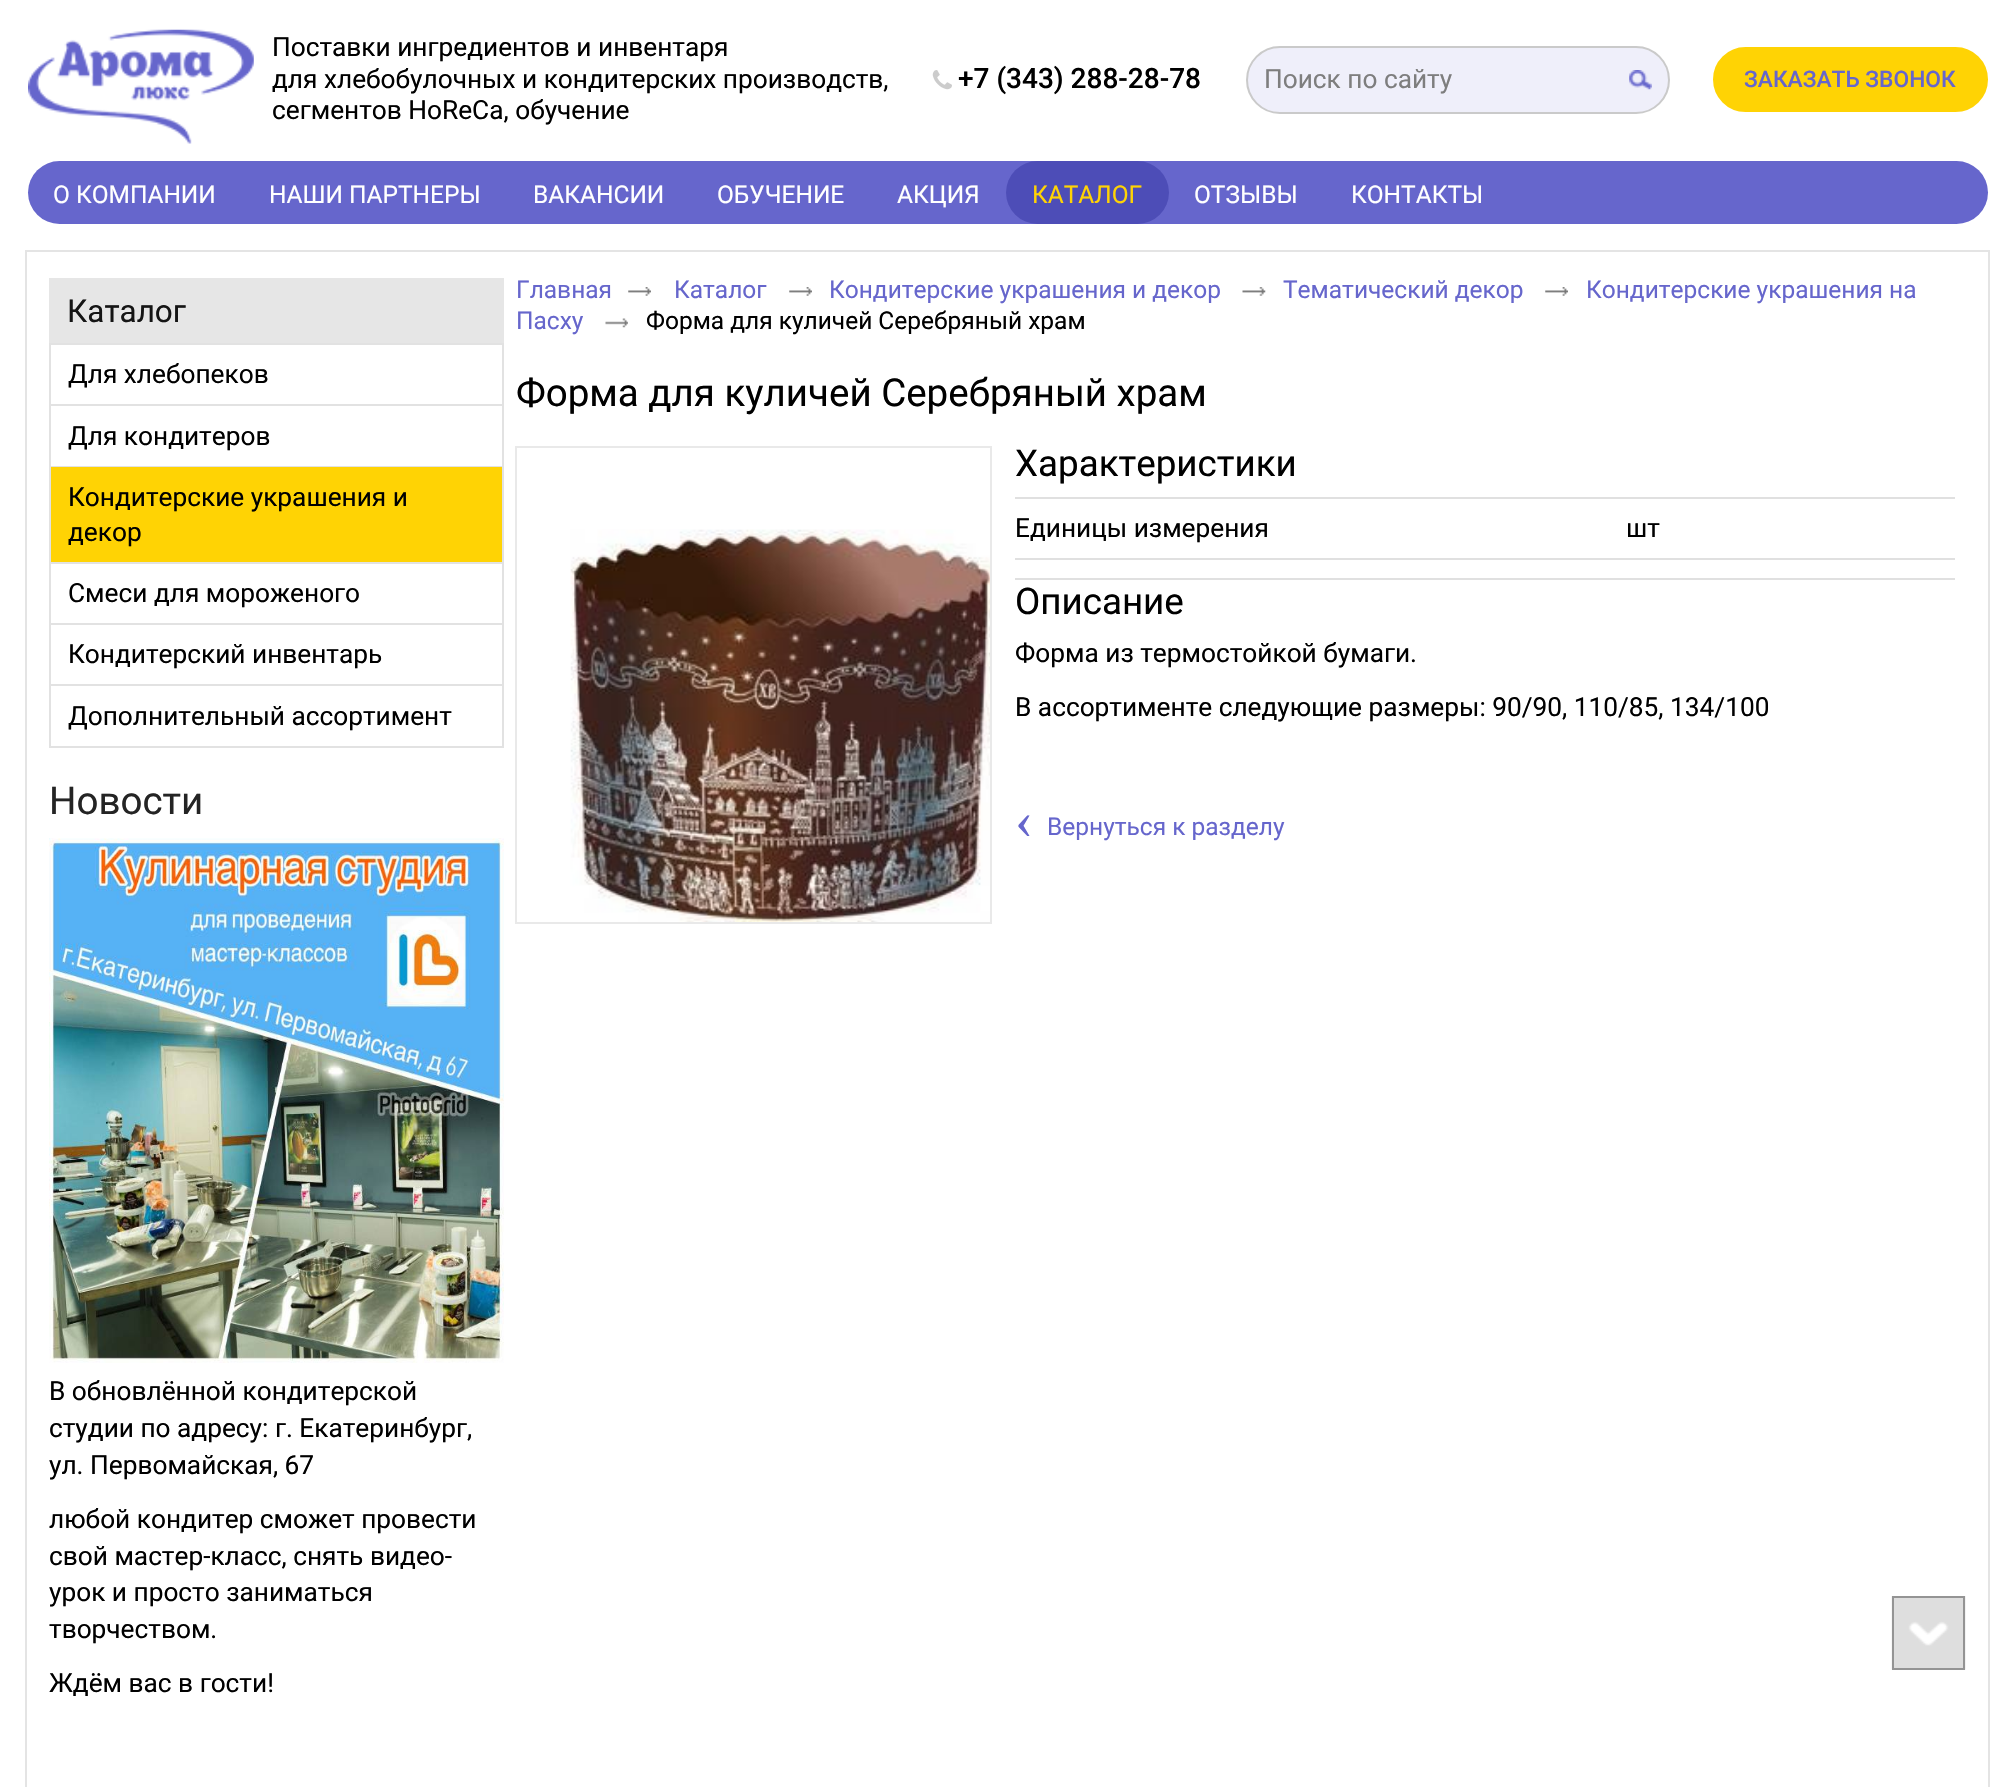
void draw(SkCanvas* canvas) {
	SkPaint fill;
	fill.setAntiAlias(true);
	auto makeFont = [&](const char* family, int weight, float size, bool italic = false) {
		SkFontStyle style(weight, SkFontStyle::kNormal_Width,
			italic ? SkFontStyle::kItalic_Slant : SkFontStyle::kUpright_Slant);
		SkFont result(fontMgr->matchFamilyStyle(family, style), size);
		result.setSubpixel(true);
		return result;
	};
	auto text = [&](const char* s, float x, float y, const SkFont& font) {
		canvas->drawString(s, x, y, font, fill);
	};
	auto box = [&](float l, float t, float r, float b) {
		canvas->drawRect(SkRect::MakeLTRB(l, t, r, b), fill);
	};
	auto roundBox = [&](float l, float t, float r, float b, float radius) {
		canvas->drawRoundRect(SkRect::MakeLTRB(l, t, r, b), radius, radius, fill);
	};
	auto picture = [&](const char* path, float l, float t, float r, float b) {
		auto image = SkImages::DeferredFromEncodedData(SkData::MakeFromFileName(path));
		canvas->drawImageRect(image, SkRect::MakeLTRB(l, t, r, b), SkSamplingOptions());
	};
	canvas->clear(0xFFFFFFFF);
	picture("image0.png", 28, 29, 254, 144);
	picture("image1.png", 932, 70, 952, 90);
	fill.setColor(0xFFEFEFFA);
	canvas->drawRoundRect(SkRect::MakeLTRB(1247, 47, 1669, 113), 33, 33, fill);
	fill.setStyle(SkPaint::kStroke_Style);
	fill.setStrokeWidth(2);
	fill.setColor(0xFFCACACA);
	canvas->drawRoundRect(SkRect::MakeLTRB(1247, 47, 1669, 113), 33, 33, fill);
	picture("image2.png", 1629, 70, 1652, 90);
	fill.setStyle(SkPaint::kFill_Style);
	fill.setColor(0xFFFFD304);
	canvas->drawRoundRect(SkRect::MakeLTRB(1715, 49, 1986, 110), 30.5f, 30.5f, fill);
	fill.setStyle(SkPaint::kStroke_Style);
	fill.setStrokeWidth(4);
	canvas->drawRoundRect(SkRect::MakeLTRB(1715, 49, 1986, 110), 30.5f, 30.5f, fill);
	fill.setStyle(SkPaint::kFill_Style);
	fill.setColor(0xFF6666CC);
	roundBox(28, 161, 1988, 224, 31.5f);
	fill.setColor(0xFF4D4DB7);
	roundBox(1006, 161, 1169, 224, 31.5f);
	fill.setStyle(SkPaint::kStroke_Style);
	fill.setStrokeWidth(2);
	fill.setColor(0xFFE4E4E4);
	canvas->drawRect(SkRect::MakeLTRB(26, 251, 1989, 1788), fill);
	fill.setStyle(SkPaint::kFill_Style);
	fill.setColor(0xFFE6E6E6);
	box(49, 278, 504, 343);
	fill.setColor(0xFFE2E2E2);
	box(502, 343, 504, 747);
	box(49, 746, 504, 748);
	box(49, 343, 51, 747);
	box(51, 343, 502, 345);
	box(51, 404, 502, 406);
	box(51, 466, 502, 467);
	fill.setColor(0xFFFFD304);
	box(51, 467, 502, 562);
	fill.setColor(0xFFE2E2E2);
	box(51, 562, 502, 564);
	box(51, 623, 502, 625);
	box(51, 684, 502, 686);
	picture("image3.png", 49, 838, 504, 1363);
	picture("image4.png", 628, 287, 651, 296);
	picture("image4.png", 789, 287, 812, 296);
	picture("image5.png", 1242, 287, 1266, 296);
	picture("image4.png", 1545, 287, 1568, 296);
	picture("image6.png", 605, 318, 628, 328);
	picture("image7.png", 570, 529, 990, 922);
	fill.setStyle(SkPaint::kStroke_Style);
	fill.setColor(0xFFE9E9E9);
	canvas->drawRect(SkRect::MakeLTRB(516, 447, 991, 923), fill);
	fill.setStyle(SkPaint::kFill_Style);
	fill.setColor(0xFFE0E0E0);
	box(1015, 497, 1955, 499);
	box(1015, 558, 1955, 560);
	box(1015, 578, 1955, 580);
	picture("image8.png", 1891, 1596, 1966, 1670);
	fill.setStyle(SkPaint::kStroke_Style);
	fill.setColor(0xFF949494);
	canvas->drawRect(SkRect::MakeLTRB(1893, 1597, 1964, 1669), fill);
	auto font1 = makeFont("Roboto", 400, 26.25f);
	fill.setStyle(SkPaint::kFill_Style);
	fill.setColor(0xFF000000);
	text("Поставки ингредиентов и инвентаря", 272, 56, font1);
	text("для хлебобулочных и кондитерских производств,", 272, 88, font1);
	text("сегментов HoReCa, обучение", 272, 119, font1);
	auto font2 = makeFont("Roboto", 500, 28);
	text("+7 (343) 288-28-78", 958, 88, font2);
	fill.setColor(0xFF7E7E7E);
	text("Поиск по сайту", 1264, 88, font1);
	auto font3 = makeFont("Roboto", 500, 22.75f);
	fill.setColor(0xFF6666CC);
	text("ЗАКАЗАТЬ ЗВОНОК", 1744, 87, font3);
	auto font4 = makeFont("Roboto", 400, 24.5f);
	fill.setColor(0xFFFFFFFF);
	text("О КОМПАНИИ", 53, 203, font4);
	text("НАШИ ПАРТНЕРЫ", 269, 203, font4);
	text("ВАКАНСИИ", 533, 203, font4);
	text("ОБУЧЕНИЕ", 717, 203, font4);
	text("АКЦИЯ", 897, 203, font4);
	fill.setColor(0xFFFFD304);
	text("КАТАЛОГ", 1032, 203, font4);
	fill.setColor(0xFFFFFFFF);
	text("ОТЗЫВЫ", 1194, 203, font4);
	text("КОНТАКТЫ", 1351, 203, font4);
	auto font5 = makeFont("Roboto", 400, 31.5f);
	fill.setColor(0xFF151515);
	text("Каталог", 67, 322, font5);
	fill.setColor(0xFF000000);
	text("Для хлебопеков", 68, 383, font1);
	text("Для кондитеров", 68, 445, font1);
	text("Кондитерские украшения и", 68, 506, font1);
	text("декор", 68, 541, font1);
	text("Смеси для мороженого", 68, 602, font1);
	text("Кондитерский инвентарь", 68, 663, font1);
	text("Дополнительный ассортимент", 68, 725, font1);
	auto font6 = makeFont("Roboto", 400, 38.5f);
	fill.setColor(0xFF242424);
	text("Новости", 49, 814, font6);
	fill.setColor(0xFF000000);
	text("В обновлённой кондитерской", 49, 1400, font1);
	text("студии по адресу: г. Екатеринбург,", 49, 1437, font1);
	text("ул. Первомайская, 67", 49, 1474, font1);
	text("любой кондитер сможет провести", 49, 1528, font1);
	text("свой мастер-класс, снять видео-", 49, 1565, font1);
	text("урок и просто заниматься", 49, 1601, font1);
	text("творчеством.", 49, 1638, font1);
	text("Ждём вас в гости!", 49, 1692, font1);
	fill.setColor(0xFF6666CC);
	text("Главная", 516, 298, font4);
	text("Каталог", 674, 298, font4);
	text("Кондитерские украшения и декор", 829, 298, font4);
	text("Тематический декор", 1283, 298, font4);
	text("Кондитерские украшения на", 1586, 298, font4);
	text("Пасху", 516, 329, font4);
	fill.setColor(0xFF000000);
	text("Форма для куличей Серебряный храм", 646, 329, font4);
	text("Форма для куличей Серебряный храм", 516, 406, font6);
	auto font7 = makeFont("Roboto", 400, 36.75f);
	text("Характеристики", 1015, 476, font7);
	text("Единицы измерения", 1015, 537, font1);
	text("шт", 1626, 537, font1);
	text("Описание", 1015, 614, font7);
	text("Форма из термостойкой бумаги.", 1015, 662, font1);
	text("В ассортименте следующие размеры: 90/90, 110/85, 134/100", 1015, 716, font1);
	auto font8 = makeFont("Liberation Serif", 400, 54);
	fill.setColor(0xFF6666CC);
	text("‹", 1015, 838, font8);
	text("Вернуться к разделу", 1047, 835, font4);
}
